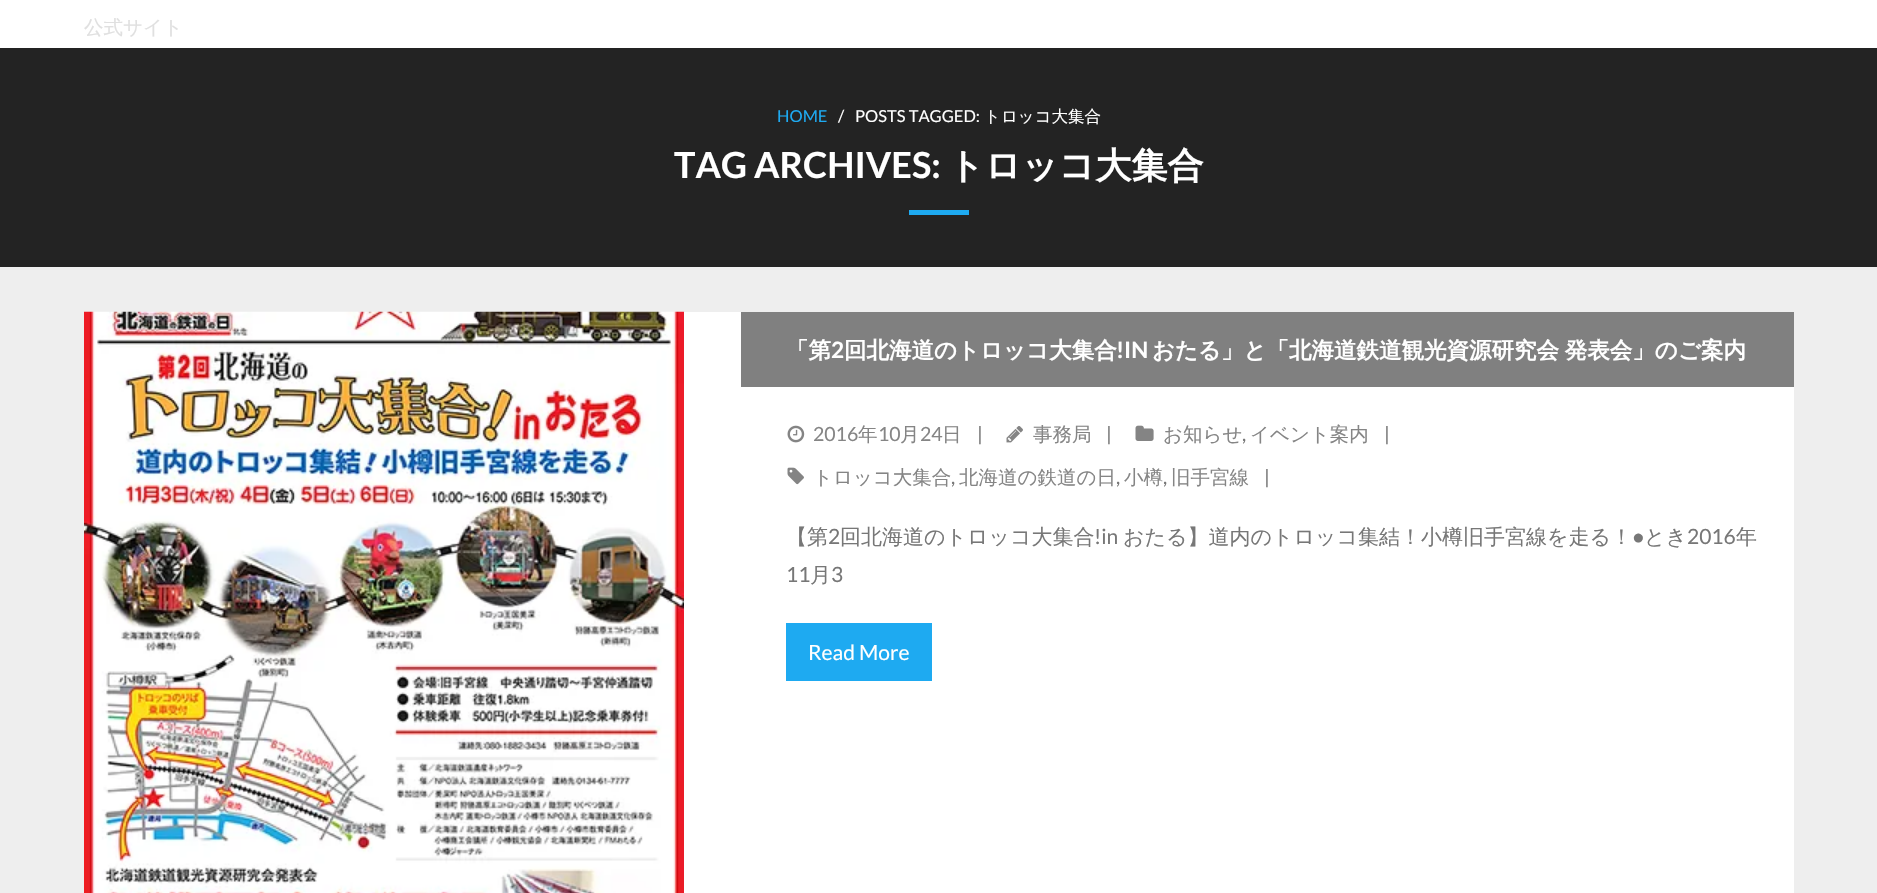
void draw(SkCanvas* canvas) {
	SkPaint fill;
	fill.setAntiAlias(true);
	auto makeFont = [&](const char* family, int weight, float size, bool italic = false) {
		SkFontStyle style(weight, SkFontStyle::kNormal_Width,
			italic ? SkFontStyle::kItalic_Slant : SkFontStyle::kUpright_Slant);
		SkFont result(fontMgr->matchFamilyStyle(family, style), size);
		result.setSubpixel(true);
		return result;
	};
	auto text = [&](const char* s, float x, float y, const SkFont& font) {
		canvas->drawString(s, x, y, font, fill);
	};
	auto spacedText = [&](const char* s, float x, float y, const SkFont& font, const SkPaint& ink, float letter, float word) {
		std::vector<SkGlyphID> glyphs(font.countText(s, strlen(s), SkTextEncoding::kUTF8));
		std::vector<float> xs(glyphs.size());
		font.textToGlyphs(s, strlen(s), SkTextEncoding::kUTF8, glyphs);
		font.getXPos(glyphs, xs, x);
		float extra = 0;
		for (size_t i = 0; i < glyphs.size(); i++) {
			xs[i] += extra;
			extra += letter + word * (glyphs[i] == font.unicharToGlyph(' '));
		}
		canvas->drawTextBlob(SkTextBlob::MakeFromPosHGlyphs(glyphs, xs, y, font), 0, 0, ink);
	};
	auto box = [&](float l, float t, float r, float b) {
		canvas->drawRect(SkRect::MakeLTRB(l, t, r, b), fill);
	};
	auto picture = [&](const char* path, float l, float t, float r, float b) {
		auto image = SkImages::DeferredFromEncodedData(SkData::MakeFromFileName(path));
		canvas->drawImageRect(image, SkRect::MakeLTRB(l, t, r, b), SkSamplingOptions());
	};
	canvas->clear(0xFFEEEEEE);
	fill.setColor(0xFFFFFFFF);
	box(0, 0, 1877, 48);
	fill.setColor(0xFF232323);
	box(0, 48, 1877, 267);
	fill.setColor(0xFF1EAAF1);
	box(909, 210, 969, 215);
	fill.setColor(0xFFFFFFFF);
	box(741, 387, 1794, 893);
	box(684, 312, 741, 893);
	picture("image0.png", 84, 311, 684, 893);
	fill.setColor(0xFF808080);
	box(741, 312, 1794, 387);
	picture("image1.png", 787, 425, 805, 443);
	picture("image2.png", 1006, 426, 1023, 443);
	picture("image3.png", 1135, 425, 1154, 441);
	picture("image4.png", 787, 467, 804, 485);
	fill.setColor(0xFF1EAAF1);
	box(786, 623, 932, 681);
	auto font1 = makeFont("WenQuanYi Zen Hei", 500, 19.5f);
	fill.setColor(0xFFE0E0E0);
	text("公式サイト", 84, 34, font1);
	auto font2 = makeFont("Lato", 400, 16.5f);
	fill.setColor(0xFF1EAAF1);
	text("HOME", 777, 122, font2);
	fill.setColor(0xFFFFFFFF);
	text("/", 838, 122, font2);
	text("POSTS TAGGED:", 855, 122, font2);
	auto font3 = makeFont("WenQuanYi Zen Hei", 500, 16.5f);
	text("トロッコ大集合", 984, 122, font3);
	auto font4 = makeFont("Lato", 700, 36);
	text("TAG ARCHIVES:", 674, 178, font4);
	auto font5 = makeFont("WenQuanYi Zen Hei", 700, 36);
	text("トロッコ大集合", 948, 178, font5);
	auto font6 = makeFont("WenQuanYi Zen Hei", 700, 22.5f);
	text("「第", 786, 358, font6);
	auto font7 = makeFont("Lato", 700, 22.5f);
	text("2", 831, 358, font7);
	text("回北海道のトロッコ大集合", 844, 358, font6);
	text("!IN", 1116, 358, font7);
	spacedText("おたる」と「北海道鉄道観光資源研究会 発表会」のご案内", 1152, 358, font6, fill, 0, -1);
	auto font8 = makeFont("Lato", 400, 19.5f);
	fill.setColor(0xFF858585);
	text("2016", 813, 441, font8);
	text("年", 858, 441, font1);
	text("10", 878, 441, font8);
	text("月", 900, 441, font1);
	text("24", 920, 441, font8);
	text("日", 942, 441, font1);
	fill.setColor(0xFF777777);
	text("|", 977, 441, font8);
	fill.setColor(0xFF858585);
	text("事務局", 1033, 441, font1);
	fill.setColor(0xFF777777);
	text("|", 1106, 441, font8);
	fill.setColor(0xFF858585);
	text("お知らせ", 1163, 441, font1);
	fill.setColor(0xFF777777);
	text(",", 1242, 441, font8);
	fill.setColor(0xFF858585);
	text("イベント案内", 1250, 441, font1);
	fill.setColor(0xFF777777);
	text("|", 1384, 441, font8);
	fill.setColor(0xFF858585);
	text("トロッコ大集合", 813, 484, font1);
	fill.setColor(0xFF777777);
	text(",", 951, 484, font8);
	fill.setColor(0xFF858585);
	text("北海道の鉄道の日", 959, 484, font1);
	fill.setColor(0xFF777777);
	text(",", 1116, 484, font8);
	fill.setColor(0xFF858585);
	text("小樽", 1124, 484, font1);
	fill.setColor(0xFF777777);
	text(",", 1163, 484, font8);
	fill.setColor(0xFF858585);
	text("旧手宮線", 1171, 484, font1);
	fill.setColor(0xFF777777);
	text("|", 1264, 484, font8);
	auto font9 = makeFont("WenQuanYi Zen Hei", 500, 21);
	text("【第", 786, 544, font9);
	auto font10 = makeFont("Lato", 400, 21);
	text("2", 828, 544, font10);
	text("回北海道のトロッコ大集合", 840, 544, font9);
	text("!in", 1094, 544, font10);
	text("おたる】道内のトロッコ集結！小樽旧手宮線を走る！", 1123, 544, font9);
	auto font11 = makeFont("Liberation Sans", 400, 21);
	text("●", 1632, 544, font11);
	text("とき", 1644, 544, font9);
	text("2016", 1687, 544, font10);
	text("年", 1736, 544, font9);
	text("11", 786, 582, font10);
	text("月", 810, 582, font9);
	text("3", 831, 582, font10);
	fill.setColor(0xFFFFFFFF);
	text("Read More", 808, 660, font10);
}
